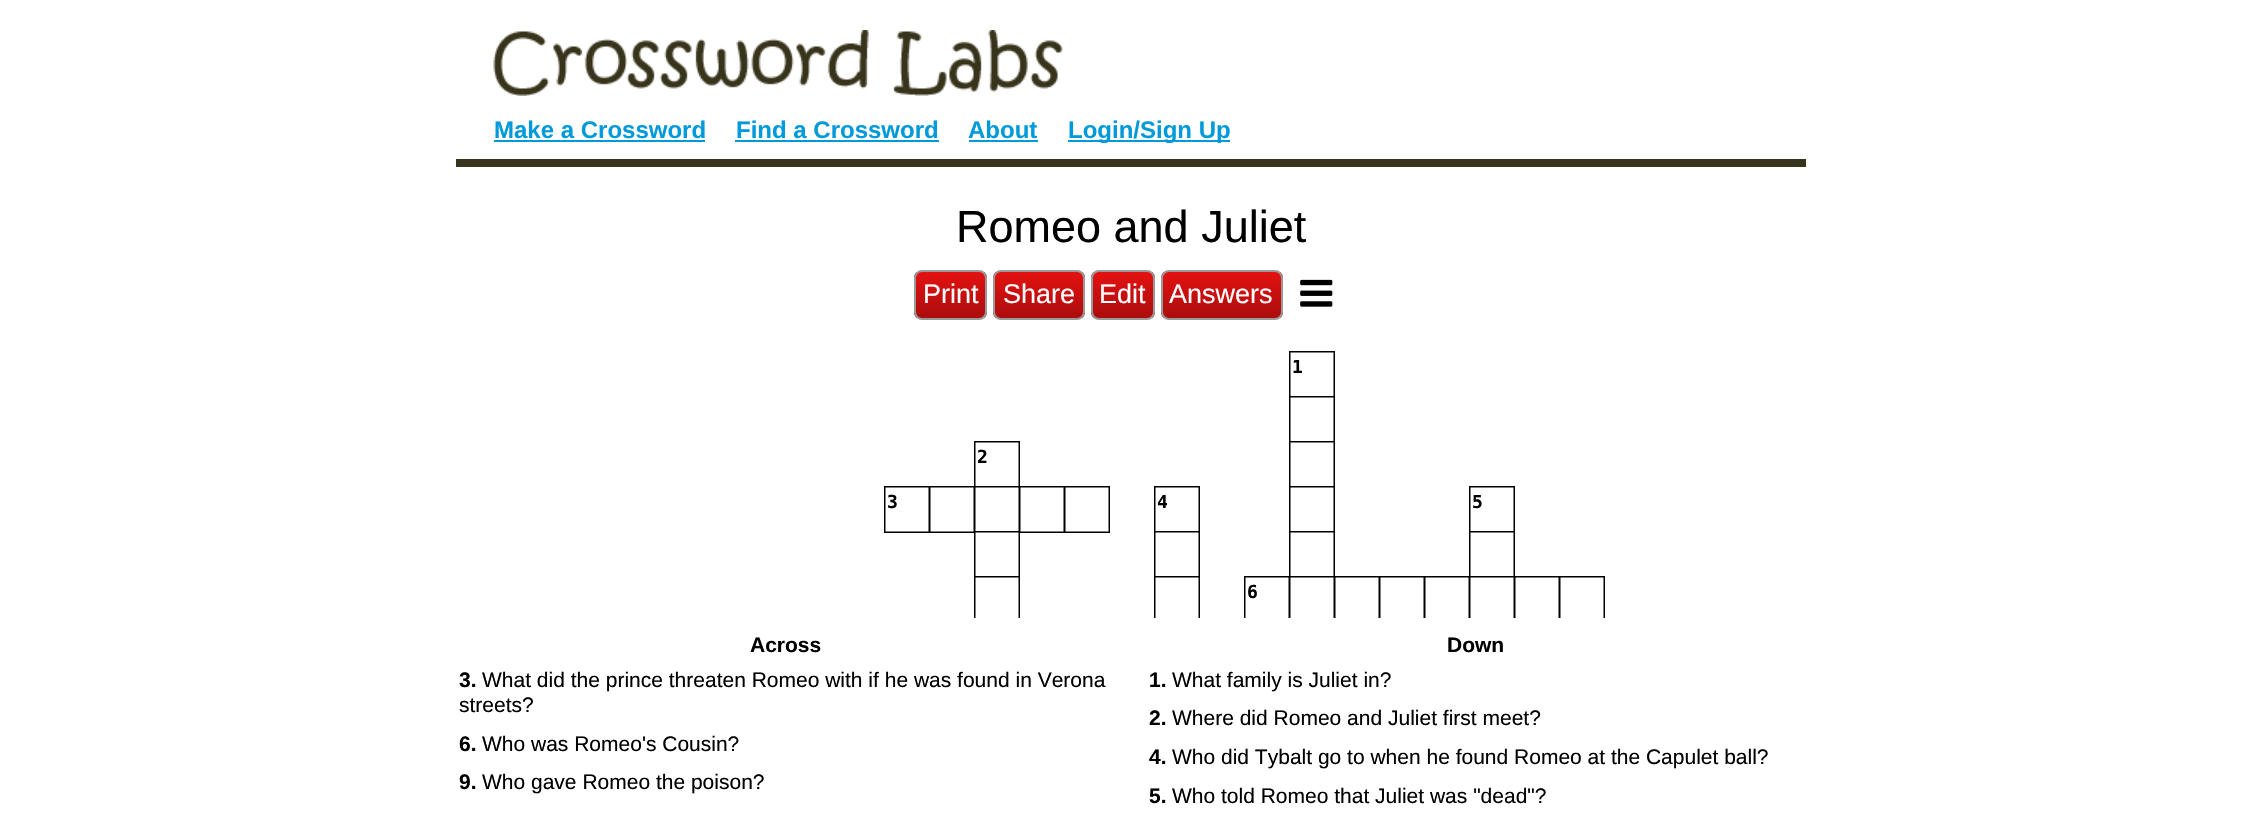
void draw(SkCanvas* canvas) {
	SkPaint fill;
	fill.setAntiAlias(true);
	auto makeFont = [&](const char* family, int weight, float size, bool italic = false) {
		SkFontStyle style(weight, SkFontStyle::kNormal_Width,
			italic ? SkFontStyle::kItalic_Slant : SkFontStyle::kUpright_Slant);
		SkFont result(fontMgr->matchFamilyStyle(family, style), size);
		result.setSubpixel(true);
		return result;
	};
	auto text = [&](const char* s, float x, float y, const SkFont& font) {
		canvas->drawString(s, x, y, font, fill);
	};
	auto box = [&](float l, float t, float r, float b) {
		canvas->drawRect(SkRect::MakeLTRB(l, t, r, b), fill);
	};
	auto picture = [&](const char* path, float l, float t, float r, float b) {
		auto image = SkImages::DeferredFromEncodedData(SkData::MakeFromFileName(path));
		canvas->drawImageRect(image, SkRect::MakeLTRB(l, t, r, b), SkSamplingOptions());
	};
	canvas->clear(0xFFFFFFFF);
	picture("image0.png", 493, 30, 1063, 96);
	fill.setColor(0xFF009ADB);
	box(494, 140, 705, 142);
	box(735, 140, 939, 142);
	box(969, 140, 1038, 142);
	box(1068, 140, 1230, 142);
	fill.setColor(0xFF38341C);
	box(456, 159, 1806, 167);
	canvas->save();
	canvas->clipPath(SkPathBuilder().moveTo(922, 270).lineTo(979, 270).cubicTo(983.5f, 270, 987, 273.5f, 987, 278).lineTo(987, 312).cubicTo(987, 316.5f, 983.5f, 320, 979, 320).lineTo(922, 320).cubicTo(917.5f, 320, 914, 316.5f, 914, 312).lineTo(914, 278).cubicTo(914, 273.5f, 917.5f, 270, 922, 270).close().detach(), true);
	{
		const SkColor colors[] = {0xFFE41111, 0xFFAB0D0D};
		const float stops[] = {0, 1};
		const SkPoint ends[] = {{950, 272}, {950, 318}};
		fill.setShader(SkGradientShader::MakeLinear(ends, colors, stops, 2, SkTileMode::kClamp));
		fill.setAlpha(255);
	}
	box(914, 272, 987, 318);
	canvas->restore();
	fill.setStyle(SkPaint::kStroke_Style);
	fill.setStrokeWidth(2);
	fill.setShader(nullptr);
	fill.setColor(0xFF999999);
	canvas->drawRoundRect(SkRect::MakeLTRB(915, 271, 986, 319), 7, 7, fill);
	canvas->save();
	canvas->clipPath(SkPathBuilder().moveTo(1001, 270).lineTo(1077, 270).cubicTo(1081.5f, 270, 1085, 273.5f, 1085, 278).lineTo(1085, 312).cubicTo(1085, 316.5f, 1081.5f, 320, 1077, 320).lineTo(1001, 320).cubicTo(996.5f, 320, 993, 316.5f, 993, 312).lineTo(993, 278).cubicTo(993, 273.5f, 996.5f, 270, 1001, 270).close().detach(), true);
	fill.setStyle(SkPaint::kFill_Style);
	{
		const SkColor colors[] = {0xFFE41111, 0xFFAB0D0D};
		const float stops[] = {0, 1};
		const SkPoint ends[] = {{1039, 272}, {1039, 318}};
		fill.setShader(SkGradientShader::MakeLinear(ends, colors, stops, 2, SkTileMode::kClamp));
		fill.setAlpha(255);
	}
	box(993, 272, 1085, 318);
	canvas->restore();
	fill.setStyle(SkPaint::kStroke_Style);
	fill.setShader(nullptr);
	fill.setColor(0xFF999999);
	canvas->drawRoundRect(SkRect::MakeLTRB(994, 271, 1084, 319), 7, 7, fill);
	canvas->save();
	canvas->clipPath(SkPathBuilder().moveTo(1099, 270).lineTo(1147, 270).cubicTo(1151.5f, 270, 1155, 273.5f, 1155, 278).lineTo(1155, 312).cubicTo(1155, 316.5f, 1151.5f, 320, 1147, 320).lineTo(1099, 320).cubicTo(1094.5f, 320, 1091, 316.5f, 1091, 312).lineTo(1091, 278).cubicTo(1091, 273.5f, 1094.5f, 270, 1099, 270).close().detach(), true);
	fill.setStyle(SkPaint::kFill_Style);
	{
		const SkColor colors[] = {0xFFE41111, 0xFFAB0D0D};
		const float stops[] = {0, 1};
		const SkPoint ends[] = {{1123, 272}, {1123, 318}};
		fill.setShader(SkGradientShader::MakeLinear(ends, colors, stops, 2, SkTileMode::kClamp));
		fill.setAlpha(255);
	}
	box(1091, 272, 1155, 318);
	canvas->restore();
	fill.setStyle(SkPaint::kStroke_Style);
	fill.setShader(nullptr);
	fill.setColor(0xFF999999);
	canvas->drawRoundRect(SkRect::MakeLTRB(1092, 271, 1154, 319), 7, 7, fill);
	canvas->save();
	canvas->clipPath(SkPathBuilder().moveTo(1169, 270).lineTo(1275, 270).cubicTo(1279.5f, 270, 1283, 273.5f, 1283, 278).lineTo(1283, 312).cubicTo(1283, 316.5f, 1279.5f, 320, 1275, 320).lineTo(1169, 320).cubicTo(1164.5f, 320, 1161, 316.5f, 1161, 312).lineTo(1161, 278).cubicTo(1161, 273.5f, 1164.5f, 270, 1169, 270).close().detach(), true);
	fill.setStyle(SkPaint::kFill_Style);
	{
		const SkColor colors[] = {0xFFE41111, 0xFFAB0D0D};
		const float stops[] = {0, 1};
		const SkPoint ends[] = {{1222, 272}, {1222, 318}};
		fill.setShader(SkGradientShader::MakeLinear(ends, colors, stops, 2, SkTileMode::kClamp));
		fill.setAlpha(255);
	}
	box(1161, 272, 1283, 318);
	canvas->restore();
	fill.setStyle(SkPaint::kStroke_Style);
	fill.setShader(nullptr);
	fill.setColor(0xFF999999);
	canvas->drawRoundRect(SkRect::MakeLTRB(1162, 271, 1282, 319), 7, 7, fill);
	picture("image1.png", 1300, 279, 1333, 307);
	picture("image2.png", 884, 351, 1605, 618);
	auto font1 = makeFont("Liberation Sans", 700, 24);
	fill.setStyle(SkPaint::kFill_Style);
	fill.setColor(0xFF009ADB);
	text("Make a Crossword", 494, 138, font1);
	text("Find a Crossword", 736, 138, font1);
	text("About", 968, 138, font1);
	text("Login/Sign Up", 1068, 138, font1);
	auto font2 = makeFont("Liberation Sans", 400, 45);
	fill.setColor(0xFF000000);
	text("Romeo and Juliet", 956, 242, font2);
	auto font3 = makeFont("Liberation Sans", 400, 27);
	fill.setColor(0xFFFFFFFF);
	text("Print", 923, 303, font3);
	text("Share", 1003, 303, font3);
	text("Edit", 1099, 303, font3);
	text("Answers", 1169, 303, font3);
	auto font4 = makeFont("DejaVu Sans Mono", 700, 18);
	fill.setColor(0xFF000000);
	text("1", 1292, 373, font4);
	text("2", 977, 463, font4);
	text("3", 887, 508, font4);
	text("4", 1157, 508, font4);
	text("5", 1472, 508, font4);
	text("6", 1247, 598, font4);
	auto font5 = makeFont("Liberation Sans", 700, 21);
	text("Across", 750, 652, font5);
	text("3.", 459, 687, font5);
	auto font6 = makeFont("Liberation Sans", 400, 21);
	text("What did the prince threaten Romeo with if he was found in Verona", 482, 687, font6);
	text("streets?", 459, 712, font6);
	text("6.", 459, 751, font5);
	text("Who was Romeo's Cousin?", 482, 751, font6);
	text("9.", 459, 789, font5);
	text("Who gave Romeo the poison?", 482, 789, font6);
	text("Down", 1447, 652, font5);
	text("1.", 1149, 687, font5);
	text("What family is Juliet in?", 1172, 687, font6);
	text("2.", 1149, 725, font5);
	text("Where did Romeo and Juliet first meet?", 1172, 725, font6);
	text("4.", 1149, 764, font5);
	text("Who did Tybalt go to when he found Romeo at the Capulet ball?", 1172, 764, font6);
	text("5.", 1149, 803, font5);
	text("Who told Romeo that Juliet was \"dead\"?", 1172, 803, font6);
}
